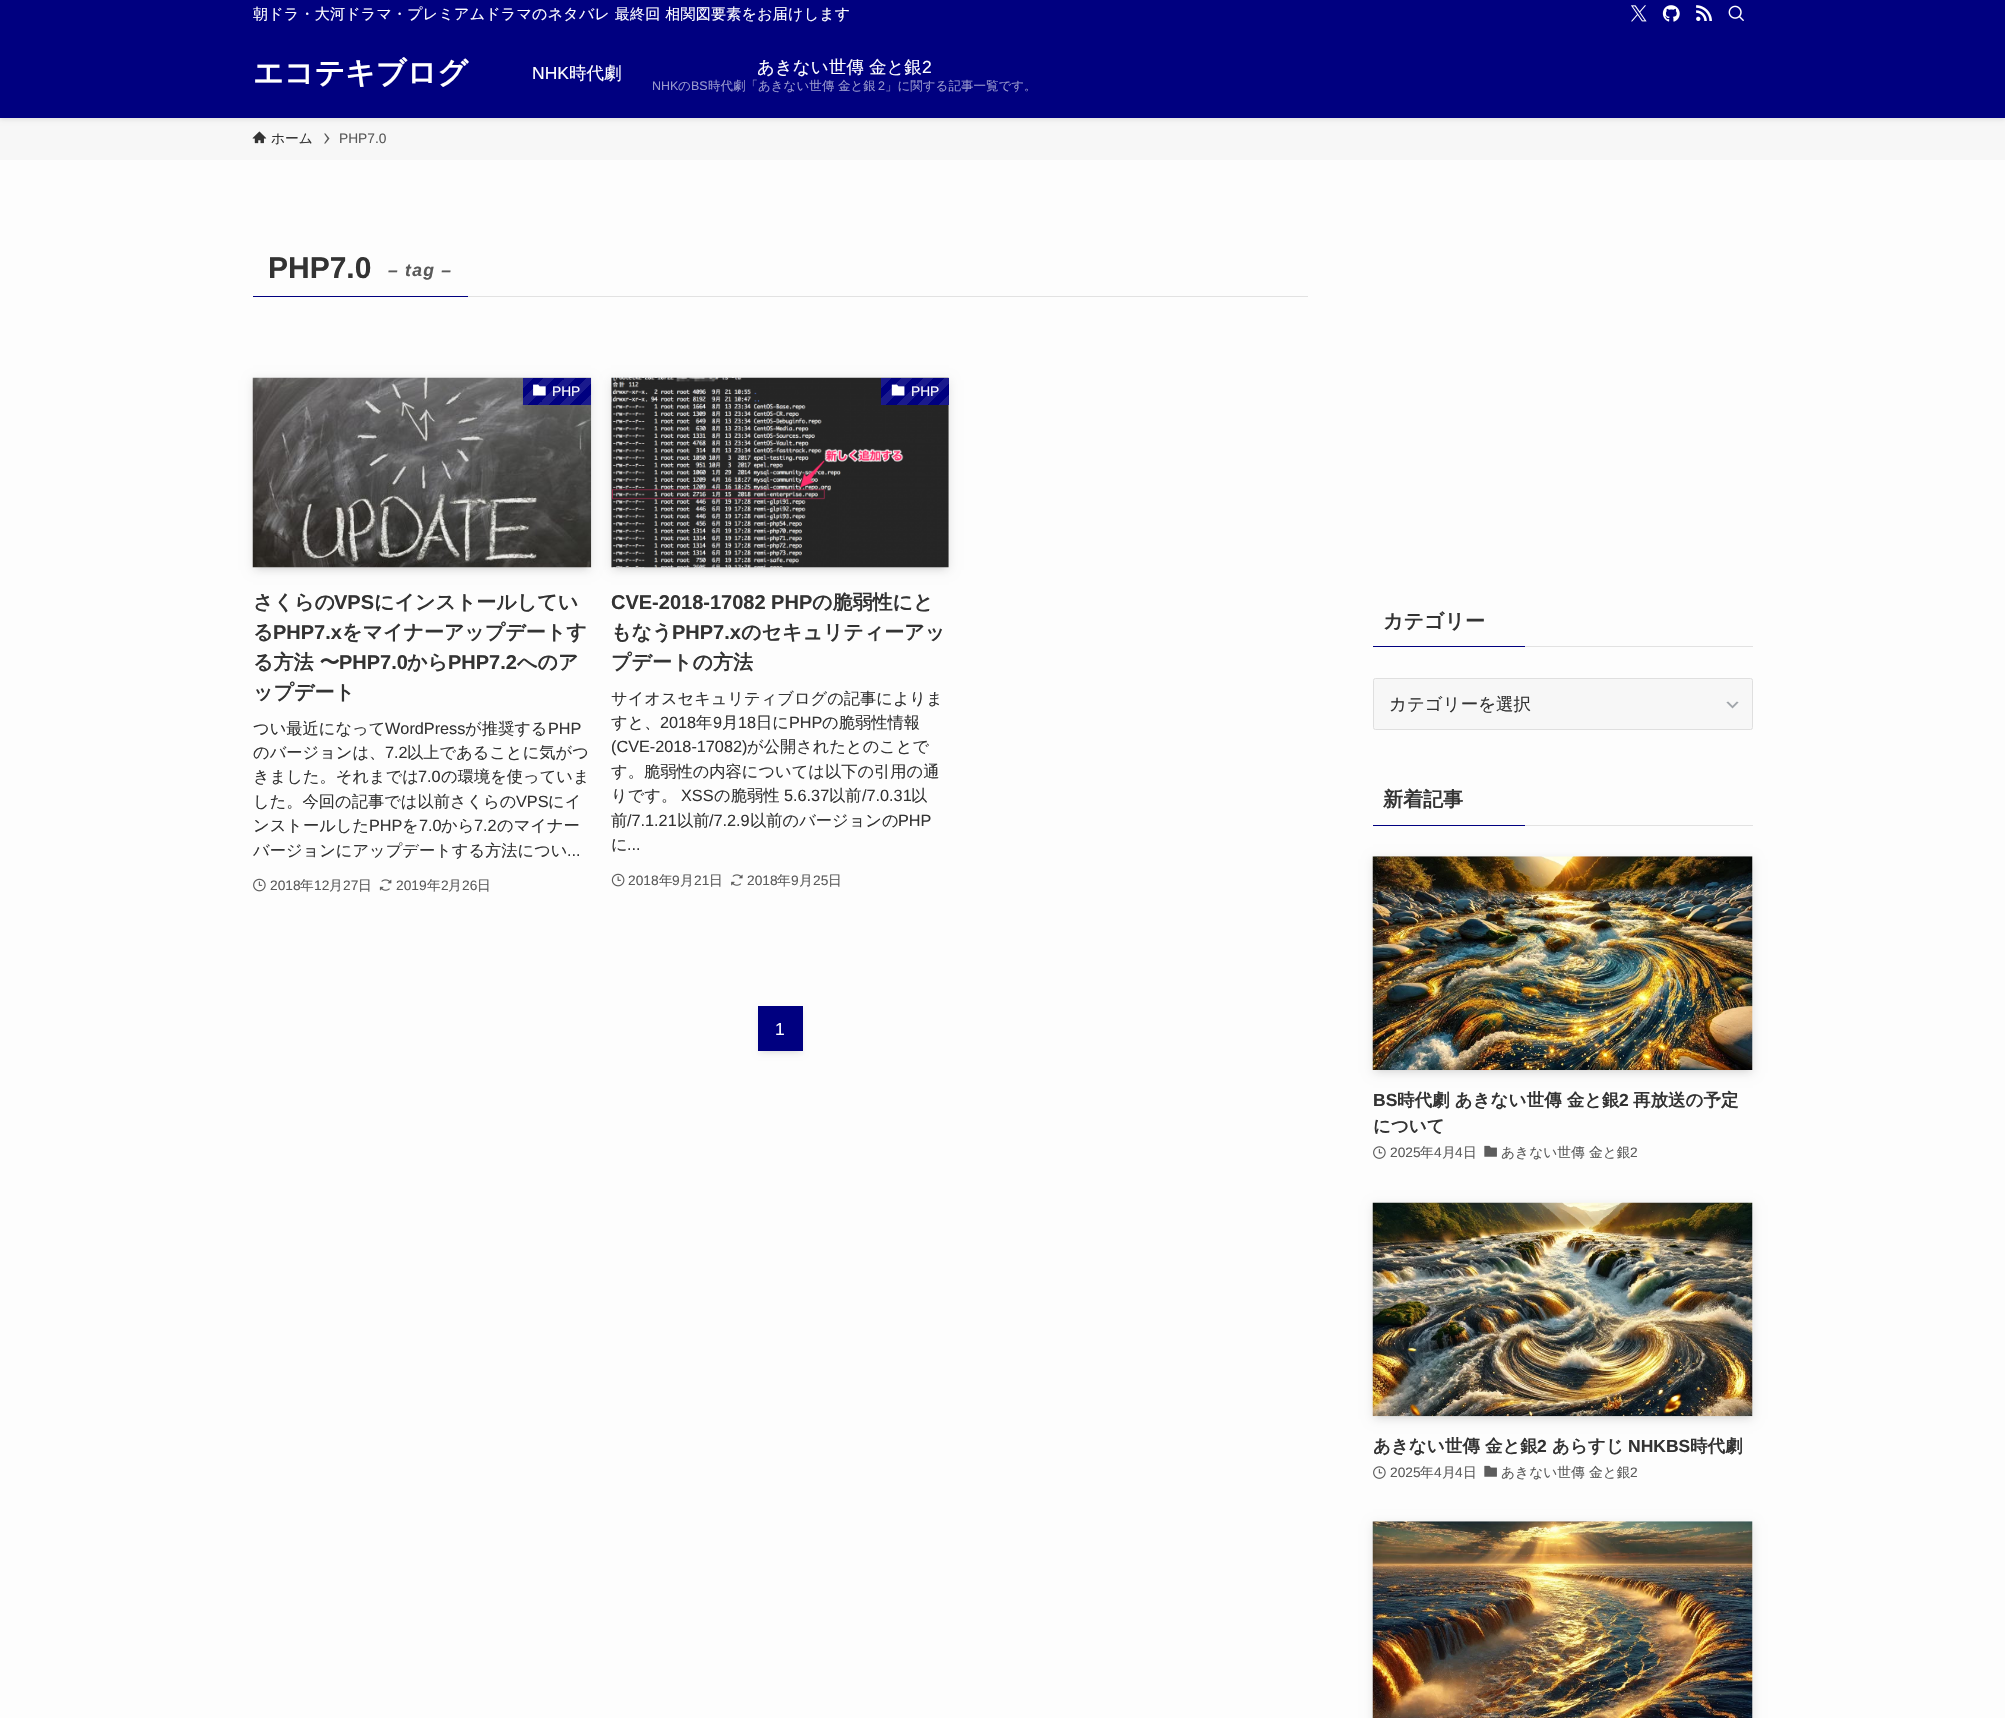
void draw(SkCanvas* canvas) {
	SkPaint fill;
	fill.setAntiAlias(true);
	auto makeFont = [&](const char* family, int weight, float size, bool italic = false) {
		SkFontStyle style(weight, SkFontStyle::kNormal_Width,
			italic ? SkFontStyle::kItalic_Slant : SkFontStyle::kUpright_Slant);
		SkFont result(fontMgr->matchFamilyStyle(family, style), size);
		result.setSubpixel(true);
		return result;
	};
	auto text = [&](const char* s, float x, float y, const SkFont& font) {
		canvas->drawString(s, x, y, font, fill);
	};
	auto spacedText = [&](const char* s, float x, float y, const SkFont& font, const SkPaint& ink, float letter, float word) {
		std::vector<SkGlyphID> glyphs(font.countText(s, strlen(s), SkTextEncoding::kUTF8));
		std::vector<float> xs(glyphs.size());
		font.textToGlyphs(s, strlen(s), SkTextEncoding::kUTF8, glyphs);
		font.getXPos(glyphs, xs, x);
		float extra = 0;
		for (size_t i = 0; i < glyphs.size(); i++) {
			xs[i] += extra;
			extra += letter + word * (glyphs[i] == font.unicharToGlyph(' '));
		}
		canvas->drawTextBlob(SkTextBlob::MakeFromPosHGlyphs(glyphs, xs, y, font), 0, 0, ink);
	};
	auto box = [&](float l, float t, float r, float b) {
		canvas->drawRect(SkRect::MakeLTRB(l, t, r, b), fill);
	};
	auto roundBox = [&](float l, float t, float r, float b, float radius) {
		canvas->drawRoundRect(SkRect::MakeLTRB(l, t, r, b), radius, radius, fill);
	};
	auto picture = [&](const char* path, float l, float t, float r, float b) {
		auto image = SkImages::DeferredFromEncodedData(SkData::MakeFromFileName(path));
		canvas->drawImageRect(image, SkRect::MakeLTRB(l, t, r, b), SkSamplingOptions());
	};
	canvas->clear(0xFFFDFDFD);
	fill.setColor(0xFFF7F7F7);
	box(0, 118, 2005, 160);
	fill.setColor(0x1F000000);
	fill.setMaskFilter(SkMaskFilter::MakeBlur(kNormal_SkBlurStyle, 2.5f));
	canvas->drawRect(SkRect::MakeLTRB(0, 1, 2005, 119), fill);
	fill.setMaskFilter(nullptr);
	fill.setColor(0xFF000080);
	box(0, 0, 2005, 118);
	picture("image0.png", 1631, 5, 1647, 22);
	picture("image1.png", 1662, 5, 1680, 22);
	picture("image2.png", 1696, 5, 1712, 21);
	picture("image3.png", 1728, 5, 1744, 21);
	picture("image4.png", 252, 131, 267, 144);
	fill.setColor(0xFF5A5A5A);
	canvas->drawPath(SkPathBuilder().moveTo(325.5f, 133.5f).lineTo(324, 133.5f).lineTo(327.5f, 138.5f).lineTo(324, 143.5f).lineTo(325.5f, 143.5f).lineTo(329.5f, 138.5f).close().detach(), fill);
	fill.setColor(0xFFE2E2E2);
	box(468, 296, 1308, 297);
	fill.setColor(0xFF000080);
	box(253, 296, 468, 297);
	fill.setColor(0x1A000000);
	fill.setMaskFilter(SkMaskFilter::MakeBlur(kNormal_SkBlurStyle, 2.5f));
	canvas->drawRect(SkRect::MakeLTRB(258, 388, 586, 568), fill);
	fill.setMaskFilter(nullptr);
	fill.setMaskFilter(SkMaskFilter::MakeBlur(kNormal_SkBlurStyle, 5));
	canvas->drawRect(SkRect::MakeLTRB(253, 380, 591, 570), fill);
	fill.setMaskFilter(nullptr);
	picture("image5.png", 252, 377, 592, 568);
	{
		const SkColor colors[] = {0xFF1A1A8D, 0xFF1A1A8D, 0xFF000080, 0xFF000080, 0xFF1A1A8D, 0xFF1A1A8D, 0xFF000080, 0xFF000080, 0xFF1A1A8D, 0xFF1A1A8D, 0xFF000080, 0xFF000080, 0xFF1A1A8D, 0xFF1A1A8D, 0xFF000080, 0xFF000080, 0xFF1A1A8D, 0xFF1A1A8D, 0xFF000080, 0xFF000080};
		const float stops[] = {0, 0.1f, 0.1f, 0.2f, 0.2f, 0.3f, 0.3f, 0.4f, 0.4f, 0.5f, 0.5f, 0.6f, 0.6f, 0.7f, 0.7f, 0.8f, 0.8f, 0.9f, 0.9f, 1};
		const SkPoint ends[] = {{581, 415}, {528, 362}};
		fill.setShader(SkGradientShader::MakeLinear(ends, colors, stops, 20, SkTileMode::kClamp));
		fill.setAlpha(255);
	}
	box(523, 378, 591, 405);
	picture("image6.png", 533, 384, 546, 396);
	picture("image7.png", 253, 878, 266, 892);
	picture("image8.png", 379, 879, 392, 891);
	fill.setShader(nullptr);
	fill.setColor(0x1A000000);
	fill.setMaskFilter(SkMaskFilter::MakeBlur(kNormal_SkBlurStyle, 2.5f));
	canvas->drawRect(SkRect::MakeLTRB(616, 388, 944, 568), fill);
	fill.setMaskFilter(nullptr);
	fill.setMaskFilter(SkMaskFilter::MakeBlur(kNormal_SkBlurStyle, 5));
	canvas->drawRect(SkRect::MakeLTRB(611, 380, 949, 570), fill);
	fill.setMaskFilter(nullptr);
	picture("image9.png", 611, 377, 949, 568);
	{
		const SkColor colors[] = {0xFF1A1A8D, 0xFF1A1A8D, 0xFF000080, 0xFF000080, 0xFF1A1A8D, 0xFF1A1A8D, 0xFF000080, 0xFF000080, 0xFF1A1A8D, 0xFF1A1A8D, 0xFF000080, 0xFF000080, 0xFF1A1A8D, 0xFF1A1A8D, 0xFF000080, 0xFF000080, 0xFF1A1A8D, 0xFF1A1A8D, 0xFF000080, 0xFF000080};
		const float stops[] = {0, 0.1f, 0.1f, 0.2f, 0.2f, 0.3f, 0.3f, 0.4f, 0.4f, 0.5f, 0.5f, 0.6f, 0.6f, 0.7f, 0.7f, 0.8f, 0.8f, 0.9f, 0.9f, 1};
		const SkPoint ends[] = {{939, 415}, {886, 362}};
		fill.setShader(SkGradientShader::MakeLinear(ends, colors, stops, 20, SkTileMode::kClamp));
		fill.setAlpha(255);
	}
	box(881, 378, 949, 405);
	picture("image10.png", 891, 384, 905, 396);
	picture("image11.png", 611, 873, 625, 887);
	picture("image12.png", 731, 874, 743, 886);
	fill.setShader(nullptr);
	fill.setColor(0x1A000000);
	fill.setMaskFilter(SkMaskFilter::MakeBlur(kNormal_SkBlurStyle, 2.5f));
	canvas->drawRect(SkRect::MakeLTRB(763, 1016, 798, 1051), fill);
	fill.setMaskFilter(nullptr);
	fill.setColor(0x0D000000);
	fill.setMaskFilter(SkMaskFilter::MakeBlur(kNormal_SkBlurStyle, 2.5f));
	canvas->drawRect(SkRect::MakeLTRB(758, 1009, 803, 1054), fill);
	fill.setMaskFilter(nullptr);
	fill.setColor(0xFF000080);
	box(758, 1006, 803, 1051);
	box(1373, 646, 1525, 647);
	fill.setColor(0xFFE2E2E2);
	box(1525, 646, 1753, 647);
	fill.setColor(0xFFF7F7F7);
	roundBox(1373, 678, 1753, 730, 2.5f);
	picture("image13.png", 1726, 701, 1739, 709);
	fill.setStyle(SkPaint::kStroke_Style);
	fill.setStrokeWidth(1);
	fill.setColor(0xFFDFDFDF);
	canvas->drawRoundRect(SkRect::MakeLTRB(1373.5f, 678.5f, 1752.5f, 729.5f), 2, 2, fill);
	fill.setStyle(SkPaint::kFill_Style);
	fill.setColor(0xFF000080);
	box(1373, 825, 1525, 826);
	fill.setColor(0xFFE2E2E2);
	box(1525, 825, 1753, 826);
	fill.setColor(0x1A000000);
	fill.setMaskFilter(SkMaskFilter::MakeBlur(kNormal_SkBlurStyle, 2.5f));
	canvas->drawRect(SkRect::MakeLTRB(1378, 866, 1748, 1070), fill);
	fill.setMaskFilter(nullptr);
	fill.setMaskFilter(SkMaskFilter::MakeBlur(kNormal_SkBlurStyle, 5));
	canvas->drawRect(SkRect::MakeLTRB(1373, 859, 1753, 1073), fill);
	fill.setMaskFilter(nullptr);
	picture("image14.png", 1372, 856, 1753, 1070);
	picture("image15.png", 1373, 1146, 1386, 1159);
	picture("image16.png", 1484, 1145, 1497, 1157);
	fill.setMaskFilter(SkMaskFilter::MakeBlur(kNormal_SkBlurStyle, 2.5f));
	canvas->drawRect(SkRect::MakeLTRB(1378, 1213, 1748, 1416), fill);
	fill.setMaskFilter(nullptr);
	fill.setMaskFilter(SkMaskFilter::MakeBlur(kNormal_SkBlurStyle, 5));
	canvas->drawRect(SkRect::MakeLTRB(1373, 1205, 1753, 1419), fill);
	fill.setMaskFilter(nullptr);
	picture("image17.png", 1372, 1202, 1753, 1417);
	picture("image15.png", 1373, 1466, 1386, 1479);
	picture("image16.png", 1484, 1465, 1497, 1477);
	fill.setMaskFilter(SkMaskFilter::MakeBlur(kNormal_SkBlurStyle, 5));
	canvas->drawRect(SkRect::MakeLTRB(1373, 1524, 1753, 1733), fill);
	fill.setMaskFilter(nullptr);
	picture("image18.png", 1372, 1521, 1753, 1718);
	auto font1 = makeFont("WenQuanYi Zen Hei", 500, 15);
	fill.setColor(0xFFFFFFFF);
	spacedText("朝ドラ・大河ドラマ・プレミアムドラマのネタバレ 最終回 相関図要素をお届けします", 253, 19, font1, fill, 0.25f, 0);
	auto font2 = makeFont("WenQuanYi Zen Hei", 700, 30);
	text("エコテキブログ", 253, 83, font2);
	auto font3 = makeFont("Liberation Sans", 400, 17.5f);
	text("NHK", 532, 79, font3);
	auto font4 = makeFont("WenQuanYi Zen Hei", 500, 17.5f);
	text("時代劇", 569, 79, font4);
	text("あきない世傳 金と銀", 757, 73, font4);
	text("2", 922, 73, font3);
	auto font5 = makeFont("Liberation Sans", 400, 12.5f);
	fill.setColor(0xFF9999CC);
	text("NHK", 652, 90, font5);
	auto font6 = makeFont("WenQuanYi Zen Hei", 500, 12.5f);
	text("の", 678, 90, font6);
	text("BS", 691, 90, font5);
	text("時代劇「あきない世傳 金と銀", 708, 90, font6);
	text("2", 878, 90, font5);
	text("」に関する記事一覧です。", 885, 90, font6);
	auto font7 = makeFont("WenQuanYi Zen Hei", 500, 13.75f);
	fill.setColor(0xFF333333);
	text("ホーム", 271, 143, font7);
	auto font8 = makeFont("Liberation Sans", 400, 13.75f);
	fill.setColor(0xFF5A5A5A);
	text("PHP7.0", 339, 143, font8);
	auto font9 = makeFont("Liberation Sans", 700, 30);
	fill.setColor(0xFF333333);
	text("PHP7.0", 268, 278, font9);
	auto font10 = makeFont("Liberation Sans", 700, 17.5f, true);
	fill.setColor(0xFF5A5A5A);
	spacedText("– tag –", 388, 276, font10, fill, 1.25f, 0);
	fill.setColor(0xFFFFFFFF);
	text("PHP", 552, 396, font8);
	auto font11 = makeFont("WenQuanYi Zen Hei", 700, 20);
	fill.setColor(0xFF333333);
	text("さくらの", 253, 609, font11);
	auto font12 = makeFont("Liberation Sans", 700, 20);
	text("VPS", 334, 609, font12);
	text("にインストールしてい", 374, 609, font11);
	text("る", 253, 639, font11);
	text("PHP7.x", 273, 639, font12);
	text("をマイナーアップデートす", 342, 639, font11);
	text("る方法 〜", 253, 669, font11);
	text("PHP7.0", 339, 669, font12);
	text("から", 407, 669, font11);
	text("PHP7.2", 448, 669, font12);
	text("へのア", 517, 669, font11);
	text("ップデート", 253, 699, font11);
	auto font13 = makeFont("WenQuanYi Zen Hei", 500, 16.25f);
	text("つい最近になって", 253, 734, font13);
	auto font14 = makeFont("Liberation Sans", 400, 16.25f);
	text("WordPress", 385, 734, font14);
	text("が推奨する", 465, 734, font13);
	text("PHP", 548, 734, font14);
	text("のバージョンは、", 253, 758, font13);
	text("7.2", 385, 758, font14);
	text("以上であることに気がつ", 407, 758, font13);
	text("きました。それまでは", 253, 782, font13);
	text("7.0", 418, 782, font14);
	text("の環境を使っていま", 441, 782, font13);
	text("した。今回の記事では以前さくらの", 253, 807, font13);
	text("VPS", 516, 807, font14);
	text("にイ", 548, 807, font13);
	text("ンストールした", 253, 831, font13);
	text("PHP", 369, 831, font14);
	text("を", 402, 831, font13);
	text("7.0", 419, 831, font14);
	text("から", 441, 831, font13);
	text("7.2", 474, 831, font14);
	text("のマイナー", 497, 831, font13);
	text("バージョンにアップデートする方法につい", 253, 856, font13);
	text("...", 567, 856, font14);
	fill.setColor(0xFF5A5A5A);
	text("2018", 270, 890, font8);
	text("年", 300, 890, font7);
	text("12", 314, 890, font8);
	text("月", 329, 890, font7);
	text("27", 343, 890, font8);
	text("日", 358, 890, font7);
	text("2019", 396, 890, font8);
	text("年", 427, 890, font7);
	text("2", 441, 890, font8);
	text("月", 448, 890, font7);
	text("26", 462, 890, font8);
	text("日", 477, 890, font7);
	fill.setColor(0xFFFFFFFF);
	text("PHP", 911, 396, font8);
	fill.setColor(0xFF333333);
	text("CVE-2018-17082 PHP", 611, 609, font12);
	text("の脆弱性にと", 812, 609, font11);
	text("もなう", 611, 639, font11);
	text("PHP7.x", 672, 639, font12);
	text("のセキュリティーアッ", 741, 639, font11);
	text("プデートの方法", 611, 669, font11);
	text("サイオスセキュリティブログの記事によりま", 611, 704, font13);
	text("すと、", 611, 728, font13);
	text("2018", 660, 728, font14);
	text("年", 696, 728, font13);
	text("9", 713, 728, font14);
	text("月", 722, 728, font13);
	text("18", 738, 728, font14);
	text("日に", 756, 728, font13);
	text("PHP", 789, 728, font14);
	text("の脆弱性情報", 822, 728, font13);
	text("(CVE-2018-17082)", 611, 752, font14);
	text("が公開されたとのことで", 747, 752, font13);
	text("す。脆弱性の内容については以下の引用の通", 611, 777, font13);
	text("りです。", 611, 801, font13);
	text("XSS", 681, 801, font14);
	text("の脆弱性", 714, 801, font13);
	text("5.6.37", 784, 801, font14);
	text("以前", 829, 801, font13);
	text("/7.0.31", 862, 801, font14);
	text("以", 911, 801, font13);
	text("前", 611, 826, font13);
	text("/7.1.21", 627, 826, font14);
	text("以前", 677, 826, font13);
	text("/7.2.9", 709, 826, font14);
	text("以前のバージョンの", 750, 826, font13);
	text("PHP", 898, 826, font14);
	text("に", 611, 850, font13);
	text("...", 627, 850, font14);
	fill.setColor(0xFF5A5A5A);
	text("2018", 628, 885, font8);
	text("年", 659, 885, font7);
	text("9", 672, 885, font8);
	text("月", 680, 885, font7);
	text("21", 694, 885, font8);
	text("日", 709, 885, font7);
	text("2018", 747, 885, font8);
	text("年", 777, 885, font7);
	text("9", 791, 885, font8);
	text("月", 799, 885, font7);
	text("25", 813, 885, font8);
	text("日", 828, 885, font7);
	fill.setColor(0xFFFFFFFF);
	text("1", 775, 1035, font3);
	fill.setColor(0xFF333333);
	text("カテゴリー", 1383, 628, font11);
	text("カテゴリーを選択", 1389, 710, font4);
	text("新着記事", 1383, 806, font11);
	auto font15 = makeFont("Liberation Sans", 700, 17.5f);
	text("BS", 1373, 1106, font15);
	auto font16 = makeFont("WenQuanYi Zen Hei", 700, 17.5f);
	text("時代劇 あきない世傳 金と銀", 1397, 1106, font16);
	text("2", 1619, 1106, font15);
	text("再放送の予定", 1633, 1106, font16);
	text("について", 1373, 1132, font16);
	fill.setColor(0xFF5A5A5A);
	text("2025", 1390, 1157, font8);
	text("年", 1420, 1157, font7);
	text("4", 1434, 1157, font8);
	text("月", 1442, 1157, font7);
	text("4", 1455, 1157, font8);
	text("日", 1463, 1157, font7);
	text("あきない世傳 金と銀", 1501, 1157, font7);
	text("2", 1630, 1157, font8);
	fill.setColor(0xFF333333);
	text("あきない世傳 金と銀", 1373, 1452, font16);
	text("2", 1537, 1452, font15);
	text("あらすじ", 1552, 1452, font16);
	text("NHKBS", 1628, 1452, font15);
	text("時代劇", 1690, 1452, font16);
	fill.setColor(0xFF5A5A5A);
	text("2025", 1390, 1477, font8);
	text("年", 1420, 1477, font7);
	text("4", 1434, 1477, font8);
	text("月", 1442, 1477, font7);
	text("4", 1455, 1477, font8);
	text("日", 1463, 1477, font7);
	text("あきない世傳 金と銀", 1501, 1477, font7);
	text("2", 1630, 1477, font8);
}
